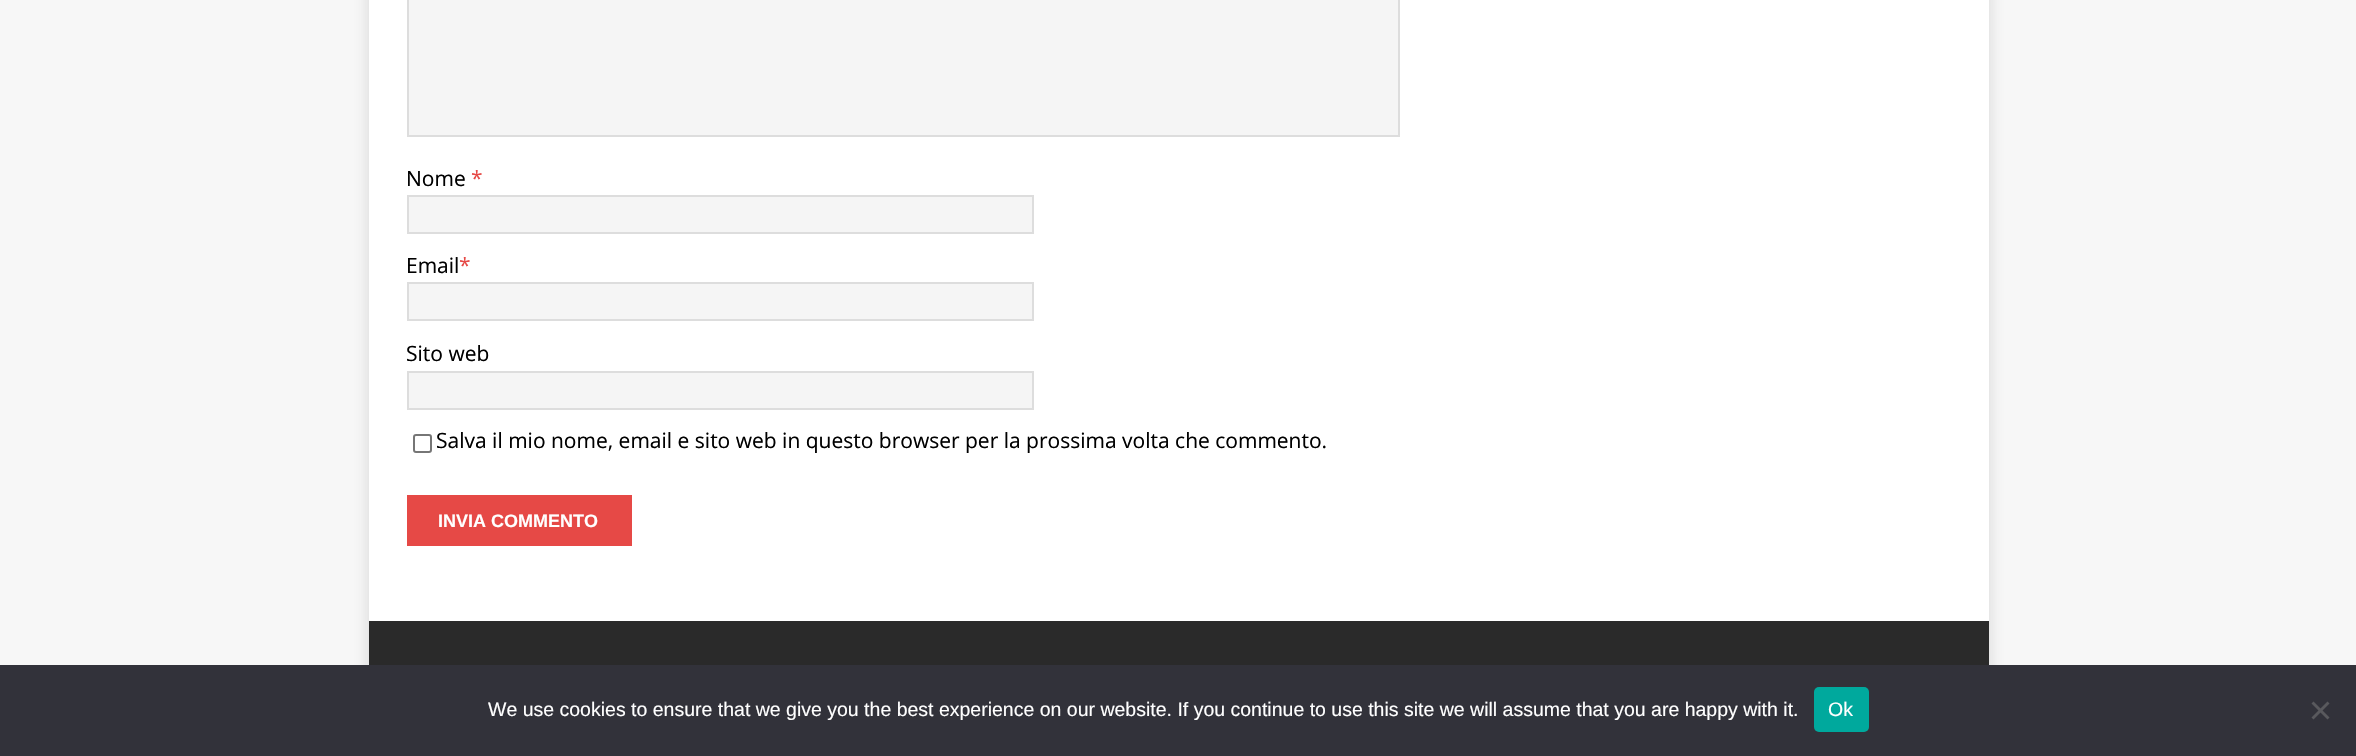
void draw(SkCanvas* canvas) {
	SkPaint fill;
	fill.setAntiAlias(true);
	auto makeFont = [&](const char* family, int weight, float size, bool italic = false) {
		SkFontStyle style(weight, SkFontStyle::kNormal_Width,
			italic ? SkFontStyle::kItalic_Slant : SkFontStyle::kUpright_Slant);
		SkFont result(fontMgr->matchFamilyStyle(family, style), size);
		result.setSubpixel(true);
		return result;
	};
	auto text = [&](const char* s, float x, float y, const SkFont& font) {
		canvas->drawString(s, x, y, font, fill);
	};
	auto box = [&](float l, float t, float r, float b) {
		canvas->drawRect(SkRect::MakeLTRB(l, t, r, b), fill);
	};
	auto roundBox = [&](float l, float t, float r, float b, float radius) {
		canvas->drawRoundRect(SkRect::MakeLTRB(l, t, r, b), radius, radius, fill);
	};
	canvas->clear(0xFFF7F7F7);
	fill.setColor(0x2B323232);
	fill.setMaskFilter(SkMaskFilter::MakeBlur(kNormal_SkBlurStyle, 7.5f));
	canvas->drawRect(SkRect::MakeLTRB(369, -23, 1989, 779), fill);
	fill.setMaskFilter(nullptr);
	fill.setColor(0xFFFFFFFF);
	box(369, 0, 1989, 621);
	fill.setColor(0xFFF5F5F5);
	canvas->drawRect(SkRect::MakeLTRB(408, -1, 1399, 136), fill);
	fill.setStyle(SkPaint::kStroke_Style);
	fill.setStrokeWidth(2);
	fill.setColor(0xFFDDDDDD);
	canvas->drawRect(SkRect::MakeLTRB(408, -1, 1399, 136), fill);
	fill.setStyle(SkPaint::kFill_Style);
	fill.setColor(0xFFF5F5F5);
	canvas->drawRect(SkRect::MakeLTRB(408, 196, 1033, 233), fill);
	fill.setStyle(SkPaint::kStroke_Style);
	fill.setColor(0xFFDDDDDD);
	canvas->drawRect(SkRect::MakeLTRB(408, 196, 1033, 233), fill);
	fill.setStyle(SkPaint::kFill_Style);
	fill.setColor(0xFFF5F5F5);
	canvas->drawRect(SkRect::MakeLTRB(408, 283, 1033, 320), fill);
	fill.setStyle(SkPaint::kStroke_Style);
	fill.setColor(0xFFDDDDDD);
	canvas->drawRect(SkRect::MakeLTRB(408, 283, 1033, 320), fill);
	fill.setStyle(SkPaint::kFill_Style);
	fill.setColor(0xFFF5F5F5);
	canvas->drawRect(SkRect::MakeLTRB(408, 372, 1033, 409), fill);
	fill.setStyle(SkPaint::kStroke_Style);
	fill.setColor(0xFFDDDDDD);
	canvas->drawRect(SkRect::MakeLTRB(408, 372, 1033, 409), fill);
	fill.setColor(0xFF767676);
	canvas->drawRoundRect(SkRect::MakeLTRB(414, 435, 431, 452), 2, 2, fill);
	fill.setStyle(SkPaint::kFill_Style);
	fill.setColor(0xFFE64946);
	box(407, 495, 632, 546);
	fill.setColor(0xFF2A2A2A);
	box(369, 621, 1989, 665);
	fill.setColor(0xFF32323A);
	box(0, 665, 2356, 756);
	fill.setColor(0xFF00A99D);
	roundBox(1814, 687, 1869, 732, 5);
	fill.setColor(0xFF59595D);
	canvas->drawPath(SkPathBuilder().moveTo(2327.5f, 701.5f).lineTo(2329.5f, 703.5f).lineTo(2313.5f, 719.5f).lineTo(2311.5f, 717.5f).close().detach(), fill);
	canvas->drawPath(SkPathBuilder().moveTo(2311.5f, 703.5f).lineTo(2313.5f, 701.5f).lineTo(2329.5f, 717.5f).lineTo(2327.5f, 719.5f).close().detach(), fill);
	auto font1 = makeFont("Open Sans", 400, 21);
	fill.setColor(0xFF000000);
	text("Nome", 406, 186, font1);
	fill.setColor(0xFFE64946);
	text("*", 471, 186, font1);
	fill.setColor(0xFF000000);
	text("Email", 406, 273, font1);
	fill.setColor(0xFFE64946);
	text("*", 459, 273, font1);
	fill.setColor(0xFF000000);
	text("Sito web", 406, 361, font1);
	text("Salva il mio nome, email e sito web in questo browser per la prossima volta che commento.", 436, 448, font1);
	auto font2 = makeFont("Liberation Sans", 700, 18);
	fill.setColor(0xFFFFFFFF);
	text("INVIA COMMENTO", 438, 527, font2);
	auto font3 = makeFont("Liberation Sans", 400, 19.5f);
	text("We use cookies to ensure that we give you the best experience on our website. If you continue to use this site we will assume that you are happy with it.", 488, 716, font3);
	text("Ok", 1828, 716, font3);
}
